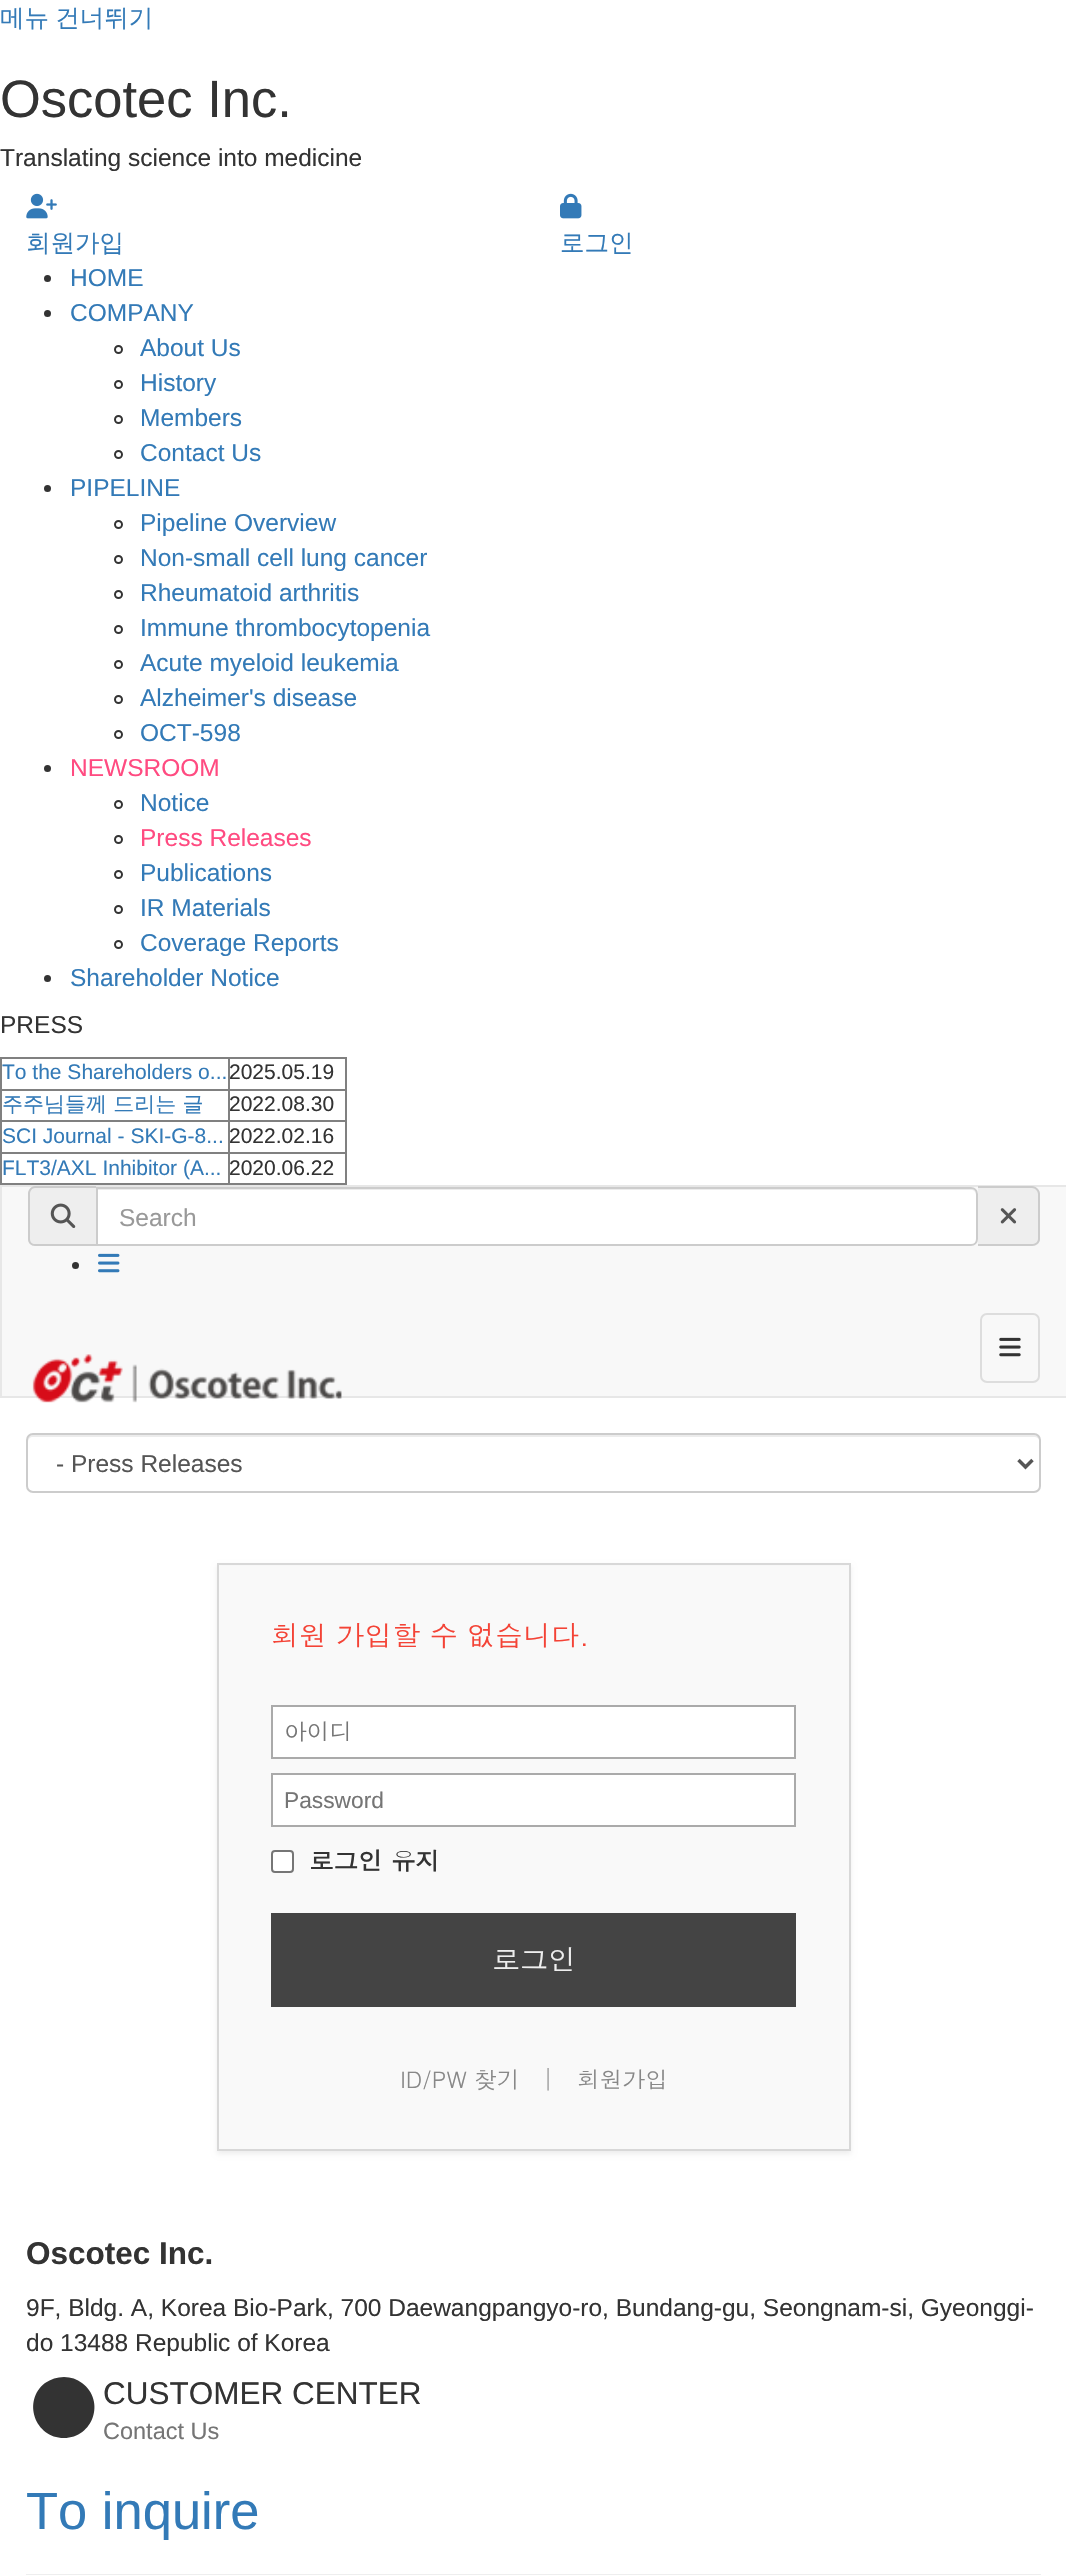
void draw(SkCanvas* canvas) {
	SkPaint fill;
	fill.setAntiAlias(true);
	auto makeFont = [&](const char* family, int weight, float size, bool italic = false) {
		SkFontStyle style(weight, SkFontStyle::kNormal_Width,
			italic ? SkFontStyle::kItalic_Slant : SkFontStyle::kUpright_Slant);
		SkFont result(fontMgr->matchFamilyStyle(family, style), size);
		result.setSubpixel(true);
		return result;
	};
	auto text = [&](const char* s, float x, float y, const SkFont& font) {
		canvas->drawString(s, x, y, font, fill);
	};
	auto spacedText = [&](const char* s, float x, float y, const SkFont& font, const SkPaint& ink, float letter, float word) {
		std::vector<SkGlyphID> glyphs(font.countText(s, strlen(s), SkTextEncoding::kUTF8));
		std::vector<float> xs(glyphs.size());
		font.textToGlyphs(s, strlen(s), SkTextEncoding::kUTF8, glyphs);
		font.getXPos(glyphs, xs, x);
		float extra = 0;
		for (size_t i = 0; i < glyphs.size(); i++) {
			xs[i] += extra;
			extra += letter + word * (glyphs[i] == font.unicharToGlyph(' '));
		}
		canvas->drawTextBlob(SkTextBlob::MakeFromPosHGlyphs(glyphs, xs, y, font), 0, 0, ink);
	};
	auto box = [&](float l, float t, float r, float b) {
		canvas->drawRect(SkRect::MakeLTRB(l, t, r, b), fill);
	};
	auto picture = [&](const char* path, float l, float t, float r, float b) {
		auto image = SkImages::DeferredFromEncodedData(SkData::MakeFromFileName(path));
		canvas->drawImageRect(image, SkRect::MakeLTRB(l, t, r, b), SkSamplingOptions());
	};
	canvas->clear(0xFFFFFFFF);
	picture("image0.png", 26, 193, 57, 219);
	picture("image1.png", 560, 193, 582, 219);
	fill.setColor(0xFF333333);
	canvas->drawCircle(47.5f, 278.5f, 3.5f, fill);
	canvas->drawCircle(47.5f, 313.5f, 3.5f, fill);
	fill.setStyle(SkPaint::kStroke_Style);
	fill.setStrokeWidth(2);
	canvas->drawCircle(118.5f, 349.5f, 3.5f, fill);
	canvas->drawCircle(118.5f, 384.5f, 3.5f, fill);
	canvas->drawCircle(118.5f, 419.5f, 3.5f, fill);
	canvas->drawCircle(118.5f, 454.5f, 3.5f, fill);
	fill.setStyle(SkPaint::kFill_Style);
	canvas->drawCircle(47.5f, 488.5f, 3.5f, fill);
	fill.setStyle(SkPaint::kStroke_Style);
	canvas->drawCircle(118.5f, 524.5f, 3.5f, fill);
	canvas->drawCircle(118.5f, 559.5f, 3.5f, fill);
	canvas->drawCircle(118.5f, 594.5f, 3.5f, fill);
	canvas->drawCircle(118.5f, 629.5f, 3.5f, fill);
	canvas->drawCircle(118.5f, 664.5f, 3.5f, fill);
	canvas->drawCircle(118.5f, 699.5f, 3.5f, fill);
	canvas->drawCircle(118.5f, 734.5f, 3.5f, fill);
	fill.setStyle(SkPaint::kFill_Style);
	canvas->drawCircle(47.5f, 768.5f, 3.5f, fill);
	fill.setStyle(SkPaint::kStroke_Style);
	canvas->drawCircle(118.5f, 804.5f, 3.5f, fill);
	canvas->drawCircle(118.5f, 839.5f, 3.5f, fill);
	canvas->drawCircle(118.5f, 874.5f, 3.5f, fill);
	canvas->drawCircle(118.5f, 909.5f, 3.5f, fill);
	canvas->drawCircle(118.5f, 944.5f, 3.5f, fill);
	fill.setStyle(SkPaint::kFill_Style);
	canvas->drawCircle(47.5f, 978.5f, 3.5f, fill);
	fill.setColor(0xFF808080);
	box(0, 1057, 347, 1059);
	box(345, 1057, 347, 1185);
	box(0, 1183, 347, 1185);
	box(0, 1057, 2, 1185);
	box(228, 1089, 347, 1091);
	box(228, 1120, 347, 1122);
	box(228, 1152, 347, 1154);
	box(228, 1152, 230, 1185);
	box(0, 1152, 229, 1154);
	box(228, 1120, 230, 1153);
	box(0, 1120, 229, 1122);
	box(228, 1089, 230, 1122);
	box(0, 1089, 229, 1091);
	box(228, 1057, 230, 1090);
	fill.setColor(0xFFF8F8F8);
	canvas->drawRect(SkRect::MakeLTRB(1, 1186, 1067, 1397), fill);
	fill.setStyle(SkPaint::kStroke_Style);
	fill.setColor(0xFFE7E7E7);
	canvas->drawRect(SkRect::MakeLTRB(1, 1186, 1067, 1397), fill);
	fill.setStyle(SkPaint::kFill_Style);
	fill.setColor(0xFFEEEEEE);
	canvas->drawPath(SkPathBuilder().moveTo(35, 1187).lineTo(96, 1187).lineTo(96, 1246).lineTo(35, 1246).cubicTo(31, 1246, 28, 1243, 28, 1239).lineTo(28, 1194).cubicTo(28, 1190, 31, 1187, 35, 1187).close().detach(), fill);
	fill.setColor(0xFFCCCCCC);
	canvas->drawPath(SkPathBuilder(SkPathFillType::kEvenOdd).moveTo(35, 1186).lineTo(96, 1186).lineTo(96, 1246).lineTo(35, 1246).cubicTo(31, 1246, 28, 1243, 28, 1239).lineTo(28, 1194).cubicTo(28, 1190, 31, 1186, 35, 1186).close().moveTo(35, 1188).lineTo(96, 1188).lineTo(96, 1244).lineTo(35, 1244).cubicTo(32, 1244, 30, 1242, 30, 1239).lineTo(30, 1194).cubicTo(30, 1191, 32, 1188, 35, 1188).close().detach(), fill);
	picture("image2.png", 50, 1203, 76, 1228);
	fill.setColor(0xFFFFFFFF);
	canvas->drawPath(SkPathBuilder().moveTo(96, 1187).lineTo(971, 1187).cubicTo(975, 1187, 978, 1190, 978, 1194).lineTo(978, 1239).cubicTo(978, 1243, 975, 1246, 971, 1246).lineTo(96, 1246).close().detach(), fill);
	fill.setColor(0xFFECECEC);
	canvas->drawPath(SkPathBuilder().moveTo(98, 1190).lineTo(971, 1190).cubicTo(974, 1190, 976, 1192, 976, 1195).lineTo(976, 1242).cubicTo(977, 1241, 977, 1240, 977, 1239).lineTo(977, 1193).cubicTo(977, 1190, 975, 1188, 972, 1188).lineTo(98, 1188).close().detach(), fill);
	fill.setStyle(SkPaint::kStroke_Style);
	fill.setColor(0xFFCCCCCC);
	canvas->drawPath(SkPathBuilder().moveTo(97, 1188).lineTo(971, 1188).cubicTo(974.5f, 1188, 977, 1190.5f, 977, 1194).lineTo(977, 1239).cubicTo(977, 1242.5f, 974.5f, 1245, 971, 1245).lineTo(97, 1245).close().detach(), fill);
	fill.setStyle(SkPaint::kFill_Style);
	fill.setColor(0xFFEEEEEE);
	canvas->drawPath(SkPathBuilder().moveTo(978, 1187).lineTo(1033, 1187).cubicTo(1037, 1187, 1040, 1190, 1040, 1194).lineTo(1040, 1239).cubicTo(1040, 1243, 1037, 1246, 1033, 1246).lineTo(978, 1246).close().detach(), fill);
	fill.setColor(0xFFCCCCCC);
	canvas->drawPath(SkPathBuilder(SkPathFillType::kEvenOdd).moveTo(978, 1186).lineTo(1032, 1186).cubicTo(1036, 1186, 1040, 1190, 1040, 1194).lineTo(1040, 1239).cubicTo(1040, 1243, 1036, 1246, 1032, 1246).lineTo(978, 1246).close().moveTo(978, 1188).lineTo(1032, 1188).cubicTo(1035, 1188, 1038, 1191, 1038, 1194).lineTo(1038, 1239).cubicTo(1038, 1242, 1035, 1244, 1032, 1244).lineTo(978, 1244).close().detach(), fill);
	picture("image3.png", 1000, 1208, 1017, 1224);
	fill.setColor(0xFF333333);
	canvas->drawCircle(75.5f, 1265.5f, 3.5f, fill);
	picture("image4.png", 98, 1253, 120, 1273);
	picture("image5.png", 32, 1354, 342, 1403);
	fill.setStyle(SkPaint::kStroke_Style);
	fill.setColor(0xFFDDDDDD);
	canvas->drawRoundRect(SkRect::MakeLTRB(981, 1314, 1039, 1382), 6, 6, fill);
	picture("image6.png", 999, 1337, 1021, 1357);
	fill.setStyle(SkPaint::kFill_Style);
	fill.setColor(0xFFECECEC);
	canvas->drawPath(SkPathBuilder().moveTo(33, 1437).lineTo(1034, 1437).cubicTo(1037, 1437, 1040, 1439, 1040, 1442).lineTo(1040, 1440).cubicTo(1040, 1437, 1038, 1435, 1035, 1435).lineTo(33, 1435).cubicTo(30, 1435, 28, 1437, 28, 1440).lineTo(28, 1442).cubicTo(28, 1439, 30, 1437, 33, 1437).close().detach(), fill);
	fill.setStyle(SkPaint::kStroke_Style);
	fill.setColor(0xFFCCCCCC);
	canvas->drawRoundRect(SkRect::MakeLTRB(27, 1434, 1040, 1492), 6, 6, fill);
	fill.setStrokeWidth(3.5f);
	fill.setColor(0xFF555555);
	canvas->drawPath(SkPathBuilder().moveTo(1018.5f, 1460).lineTo(1025.5f, 1467).lineTo(1032.5f, 1460).detach(), fill);
	fill.setStyle(SkPaint::kFill_Style);
	fill.setColor(0xFFEEEEEE);
	fill.setMaskFilter(SkMaskFilter::MakeBlur(kNormal_SkBlurStyle, 2.5f));
	canvas->drawRect(SkRect::MakeLTRB(217, 1566, 851, 2154), fill);
	fill.setMaskFilter(nullptr);
	fill.setColor(0xFFF9F9F9);
	box(219, 1566, 849, 2149);
	fill.setStyle(SkPaint::kStroke_Style);
	fill.setStrokeWidth(2);
	fill.setColor(0xFFD8D8D8);
	canvas->drawRect(SkRect::MakeLTRB(218, 1564, 850, 2150), fill);
	fill.setStyle(SkPaint::kFill_Style);
	fill.setColor(0xFFFFFFFF);
	canvas->drawRect(SkRect::MakeLTRB(272, 1706, 795, 1758), fill);
	fill.setStyle(SkPaint::kStroke_Style);
	fill.setColor(0xFFAAAAAA);
	canvas->drawRect(SkRect::MakeLTRB(272, 1706, 795, 1758), fill);
	fill.setStyle(SkPaint::kFill_Style);
	fill.setColor(0xFFFFFFFF);
	canvas->drawRect(SkRect::MakeLTRB(272, 1774, 795, 1826), fill);
	fill.setStyle(SkPaint::kStroke_Style);
	fill.setColor(0xFFAAAAAA);
	canvas->drawRect(SkRect::MakeLTRB(272, 1774, 795, 1826), fill);
	fill.setStyle(SkPaint::kFill_Style);
	fill.setColor(0xFFFFFFFF);
	canvas->drawRoundRect(SkRect::MakeLTRB(272, 1851, 293, 1872), 3, 3, fill);
	fill.setStyle(SkPaint::kStroke_Style);
	fill.setColor(0xFF767676);
	canvas->drawRoundRect(SkRect::MakeLTRB(272, 1851, 293, 1872), 3, 3, fill);
	fill.setStyle(SkPaint::kFill_Style);
	fill.setColor(0xFF444444);
	box(271, 1913, 796, 2007);
	fill.setColor(0xFF333333);
	canvas->drawPath(SkPathBuilder().moveTo(64, 2438).cubicTo(93, 2438, 106, 2401, 82, 2383).cubicTo(77, 2379, 71, 2377, 64, 2377).cubicTo(57, 2377, 51, 2379, 45, 2383).cubicTo(22, 2401, 35, 2438, 64, 2438).close().detach(), fill);
	fill.setColor(0xFFEEEEEE);
	box(26, 2574, 1041, 2575);
	auto font1 = makeFont("WenQuanYi Zen Hei", 500, 24.5f);
	fill.setColor(0xFF337AB7);
	spacedText("메뉴 건너뛰기", 0, 26, font1, fill, 0, -1);
	auto font2 = makeFont("Liberation Sans", 400, 52.5f);
	fill.setColor(0xFF333333);
	text("Oscotec Inc.", 0, 117, font2);
	auto font3 = makeFont("Liberation Sans", 400, 24.5f);
	text("Translating science into medicine", 0, 166, font3);
	fill.setColor(0xFF337AB7);
	text("회원가입", 26, 251, font1);
	text("로그인", 560, 251, font1);
	text("HOME", 70, 286, font3);
	text("COMPANY", 70, 321, font3);
	text("About Us", 140, 356, font3);
	text("History", 140, 391, font3);
	text("Members", 140, 426, font3);
	text("Contact Us", 140, 461, font3);
	text("PIPELINE", 70, 496, font3);
	text("Pipeline Overview", 140, 531, font3);
	text("Non-small cell lung cancer", 140, 566, font3);
	text("Rheumatoid arthritis", 140, 601, font3);
	text("Immune thrombocytopenia", 140, 636, font3);
	text("Acute myeloid leukemia", 140, 671, font3);
	text("Alzheimer's disease", 140, 706, font3);
	text("OCT-598", 140, 741, font3);
	fill.setColor(0xFFFF4B81);
	text("NEWSROOM", 70, 776, font3);
	fill.setColor(0xFF337AB7);
	text("Notice", 140, 811, font3);
	fill.setColor(0xFFFF4B81);
	text("Press Releases", 140, 846, font3);
	fill.setColor(0xFF337AB7);
	text("Publications", 140, 881, font3);
	text("IR Materials", 140, 916, font3);
	text("Coverage Reports", 140, 951, font3);
	text("Shareholder Notice", 70, 986, font3);
	fill.setColor(0xFF333333);
	text("PRESS", 0, 1033, font3);
	auto font4 = makeFont("Liberation Sans", 400, 21);
	fill.setColor(0xFF337AB7);
	text("To the Shareholders o...", 2, 1079, font4);
	fill.setColor(0xFF333333);
	text("2025.05.19", 229, 1079, font4);
	auto font5 = makeFont("WenQuanYi Zen Hei", 500, 21);
	fill.setColor(0xFF337AB7);
	text("주주님들께 드리는 글", 2, 1111, font5);
	fill.setColor(0xFF333333);
	text("2022.08.30", 229, 1111, font4);
	fill.setColor(0xFF337AB7);
	text("SCI Journal - SKI-G-8...", 2, 1143, font4);
	fill.setColor(0xFF333333);
	text("2022.02.16", 229, 1143, font4);
	fill.setColor(0xFF337AB7);
	text("FLT3/AXL Inhibitor (A...", 2, 1175, font4);
	fill.setColor(0xFF333333);
	text("2020.06.22", 229, 1175, font4);
	fill.setColor(0xFF999999);
	text("Search", 119, 1226, font3);
	fill.setColor(0xFF555555);
	text("- Press Releases", 56, 1472, font3);
	auto font6 = makeFont("Dotum", 400, 28);
	fill.setColor(0xFFF44336);
	text("회원 가입할 수 없습니다.", 271, 1646, font6);
	auto font7 = makeFont("Dotum", 400, 22.75f);
	fill.setColor(0xFF757575);
	text("아이디", 284, 1740, font7);
	auto font8 = makeFont("Liberation Sans", 400, 22.75f);
	text("Password", 284, 1808, font8);
	auto font9 = makeFont("Dotum", 700, 24.5f);
	fill.setColor(0xFF333333);
	text("로그인 유지", 309, 1870, font9);
	fill.setColor(0xFFEEEEEE);
	text("로그인", 492, 1970, font6);
	fill.setColor(0xFF888888);
	text("ID/PW 찾기", 400, 2088, font7);
	auto font10 = makeFont("Dotum", 400, 24.5f);
	fill.setColor(0xFFAAAAAA);
	text("|", 542, 2088, font10);
	fill.setColor(0xFF888888);
	text("회원가입", 577, 2088, font7);
	auto font11 = makeFont("Liberation Sans", 700, 31.5f);
	fill.setColor(0xFF333333);
	text("Oscotec Inc.", 26, 2264, font11);
	text("9F, Bldg. A, Korea Bio-Park, 700 Daewangpangyo-ro, Bundang-gu, Seongnam-si, Gyeonggi-", 26, 2316, font3);
	text("do 13488 Republic of Korea", 26, 2351, font3);
	auto font12 = makeFont("Liberation Sans", 400, 31.5f);
	text("CUSTOMER CENTER", 103, 2404, font12);
	auto font13 = makeFont("Liberation Sans", 400, 23.5f);
	fill.setColor(0xFF757575);
	text("Contact Us", 103, 2439, font13);
	fill.setColor(0xFF337AB7);
	text("To inquire", 26, 2529, font2);
}
